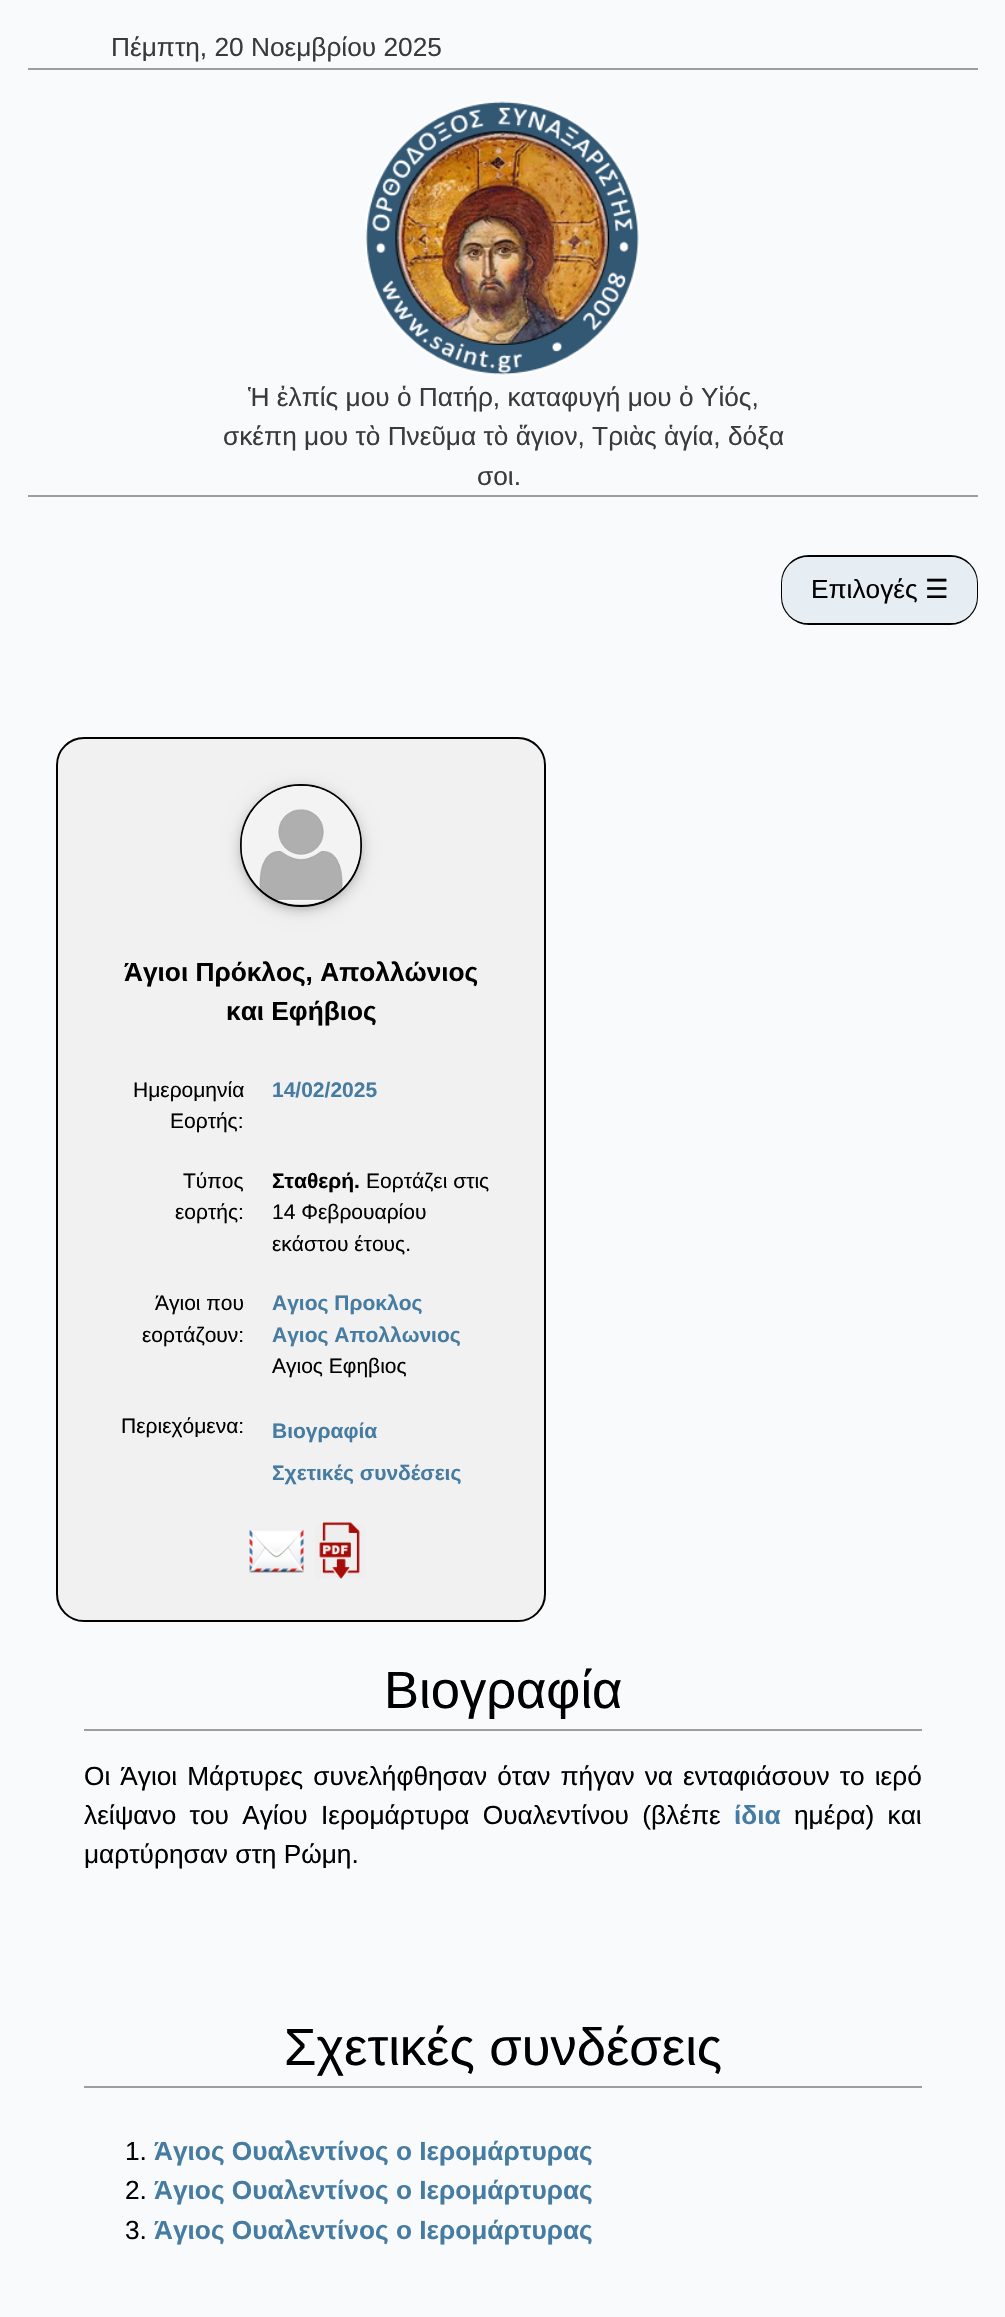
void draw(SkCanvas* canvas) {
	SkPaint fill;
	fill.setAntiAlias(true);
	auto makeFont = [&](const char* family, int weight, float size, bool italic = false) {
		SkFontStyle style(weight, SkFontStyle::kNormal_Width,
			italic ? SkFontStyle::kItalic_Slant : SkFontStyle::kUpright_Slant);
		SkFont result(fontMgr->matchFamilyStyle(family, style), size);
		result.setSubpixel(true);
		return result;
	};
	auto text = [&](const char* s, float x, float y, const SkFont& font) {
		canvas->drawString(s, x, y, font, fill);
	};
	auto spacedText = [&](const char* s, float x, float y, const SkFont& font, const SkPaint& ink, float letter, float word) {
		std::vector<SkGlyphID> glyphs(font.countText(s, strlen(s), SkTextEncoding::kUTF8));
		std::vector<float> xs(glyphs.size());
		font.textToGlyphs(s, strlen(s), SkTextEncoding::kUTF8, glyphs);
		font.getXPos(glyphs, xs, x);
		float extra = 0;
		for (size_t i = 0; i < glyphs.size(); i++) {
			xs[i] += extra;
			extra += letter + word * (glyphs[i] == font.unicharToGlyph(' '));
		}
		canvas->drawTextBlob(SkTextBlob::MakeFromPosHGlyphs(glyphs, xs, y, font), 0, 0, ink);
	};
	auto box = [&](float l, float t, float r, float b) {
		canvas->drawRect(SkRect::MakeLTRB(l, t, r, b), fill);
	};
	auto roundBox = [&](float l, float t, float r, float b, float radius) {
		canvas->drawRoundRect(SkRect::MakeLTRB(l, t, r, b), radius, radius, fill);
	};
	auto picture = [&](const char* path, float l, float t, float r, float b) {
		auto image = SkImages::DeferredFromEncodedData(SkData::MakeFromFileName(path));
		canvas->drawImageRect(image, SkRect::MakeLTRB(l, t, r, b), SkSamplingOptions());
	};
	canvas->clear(0xFFF8FAFC);
	fill.setColor(0xFF9E9E9E);
	box(28, 68, 978, 70);
	box(28, 495, 978, 497);
	picture("image0.png", 365, 100, 640, 376);
	fill.setStyle(SkPaint::kStroke_Style);
	fill.setStrokeWidth(2);
	fill.setColor(0xFF000000);
	canvas->drawRoundRect(SkRect::MakeLTRB(782, 556, 977, 624), 27, 27, fill);
	fill.setStyle(SkPaint::kFill_Style);
	fill.setColor(0xFFE6EEF4);
	roundBox(782, 557, 977, 623, 26);
	fill.setColor(0xFFF1F1F1);
	canvas->drawRoundRect(SkRect::MakeLTRB(57, 738, 545, 1621), 27, 27, fill);
	fill.setStyle(SkPaint::kStroke_Style);
	fill.setColor(0xFF000000);
	canvas->drawRoundRect(SkRect::MakeLTRB(57, 738, 545, 1621), 27, 27, fill);
	fill.setStyle(SkPaint::kFill_Style);
	fill.setColor(0x1F000000);
	fill.setMaskFilter(SkMaskFilter::MakeBlur(kNormal_SkBlurStyle, 9));
	canvas->drawRoundRect(SkRect::MakeLTRB(240, 788, 362, 910), 61, 61, fill);
	fill.setMaskFilter(nullptr);
	fill.setColor(0x29000000);
	fill.setMaskFilter(SkMaskFilter::MakeBlur(kNormal_SkBlurStyle, 4.5f));
	canvas->drawRoundRect(SkRect::MakeLTRB(240, 788, 362, 910), 61, 61, fill);
	fill.setMaskFilter(nullptr);
	fill.setStyle(SkPaint::kStroke_Style);
	fill.setColor(0xFF000000);
	canvas->drawRoundRect(SkRect::MakeLTRB(241, 785, 361, 906), 60, 60, fill);
	picture("image1.png", 241, 785, 361, 905);
	picture("image2.png", 249, 1529, 304, 1573);
	picture("image3.png", 315, 1522, 365, 1579);
	fill.setStyle(SkPaint::kFill_Style);
	fill.setColor(0xFF9E9E9E);
	box(84, 1729, 922, 1731);
	box(84, 2086, 922, 2088);
	auto font1 = makeFont("Liberation Sans", 400, 26.25f);
	fill.setColor(0xFF3A3A3A);
	text("Πέμπτη, 20 Νοεμβρίου 2025", 111, 56, font1);
	text("Ἡ ἐλπίς μου ὁ Πατήρ, καταφυγή μου ὁ Υἱός,", 248, 406, font1);
	text("σκέπη μου τὸ Πνεῦμα τὸ ἅγιον, Τριὰς ἁγία, δόξα", 223, 445, font1);
	text("σοι.", 477, 485, font1);
	fill.setColor(0xFF000000);
	text("Επιλογές", 811, 598, font1);
	auto font2 = makeFont("DejaVu Sans", 400, 26.25f);
	text("☰", 925, 598, font2);
	auto font3 = makeFont("Liberation Sans", 700, 26.25f);
	text("Άγιοι Πρόκλος, Απολλώνιος", 124, 981, font3);
	text("και Εφήβιος", 226, 1020, font3);
	auto font4 = makeFont("Liberation Sans", 400, 21);
	text("Ημερομηνία", 133, 1097, font4);
	text("Εορτής:", 170, 1128, font4);
	auto font5 = makeFont("Liberation Sans", 700, 21);
	fill.setColor(0xFF467CA2);
	text("14/02/2025", 272, 1097, font5);
	fill.setColor(0xFF000000);
	text("Τύπος", 183, 1188, font4);
	text("εορτής:", 175, 1219, font4);
	text("Σταθερή.", 272, 1188, font5);
	text("Εορτάζει στις", 366, 1188, font4);
	text("14 Φεβρουαρίου", 272, 1219, font4);
	text("εκάστου έτους.", 272, 1251, font4);
	text("Άγιοι που", 155, 1310, font4);
	text("εορτάζουν:", 142, 1342, font4);
	fill.setColor(0xFF467CA2);
	text("Αγιος Προκλος", 272, 1310, font5);
	text("Αγιος Απολλωνιος", 272, 1342, font5);
	fill.setColor(0xFF000000);
	text("Αγιος Εφηβιος", 272, 1373, font4);
	text("Περιεχόμενα:", 121, 1433, font4);
	fill.setColor(0xFF467CA2);
	text("Βιογραφία", 272, 1438, font5);
	text("Σχετικές συνδέσεις", 272, 1480, font5);
	auto font6 = makeFont("Liberation Sans", 400, 52.5f);
	fill.setColor(0xFF000000);
	text("Βιογραφία", 384, 1708, font6);
	spacedText("Οι Άγιοι Μάρτυρες συνελήφθησαν όταν πήγαν να ενταφιάσουν το ιερό", 84, 1785, font1, fill, 0, 2.75f);
	spacedText("λείψανο του Αγίου Ιερομάρτυρα Ουαλεντίνου (βλέπε", 84, 1824, font1, fill, 0, 6);
	fill.setColor(0xFF467CA2);
	text("ίδια", 734, 1824, font3);
	fill.setColor(0xFF000000);
	spacedText("ημέρα) και", 794, 1824, font1, fill, 0, 6);
	text("μαρτύρησαν στη Ρώμη.", 84, 1863, font1);
	text("Σχετικές συνδέσεις", 284, 2065, font6);
	text("1.", 125, 2160, font1);
	fill.setColor(0xFF467CA2);
	text("Άγιος Ουαλεντίνος ο Ιερομάρτυρας", 154, 2160, font3);
	fill.setColor(0xFF000000);
	text("2.", 125, 2199, font1);
	fill.setColor(0xFF467CA2);
	text("Άγιος Ουαλεντίνος ο Ιερομάρτυρας", 154, 2199, font3);
	fill.setColor(0xFF000000);
	text("3.", 125, 2239, font1);
	fill.setColor(0xFF467CA2);
	text("Άγιος Ουαλεντίνος ο Ιερομάρτυρας", 154, 2239, font3);
}
